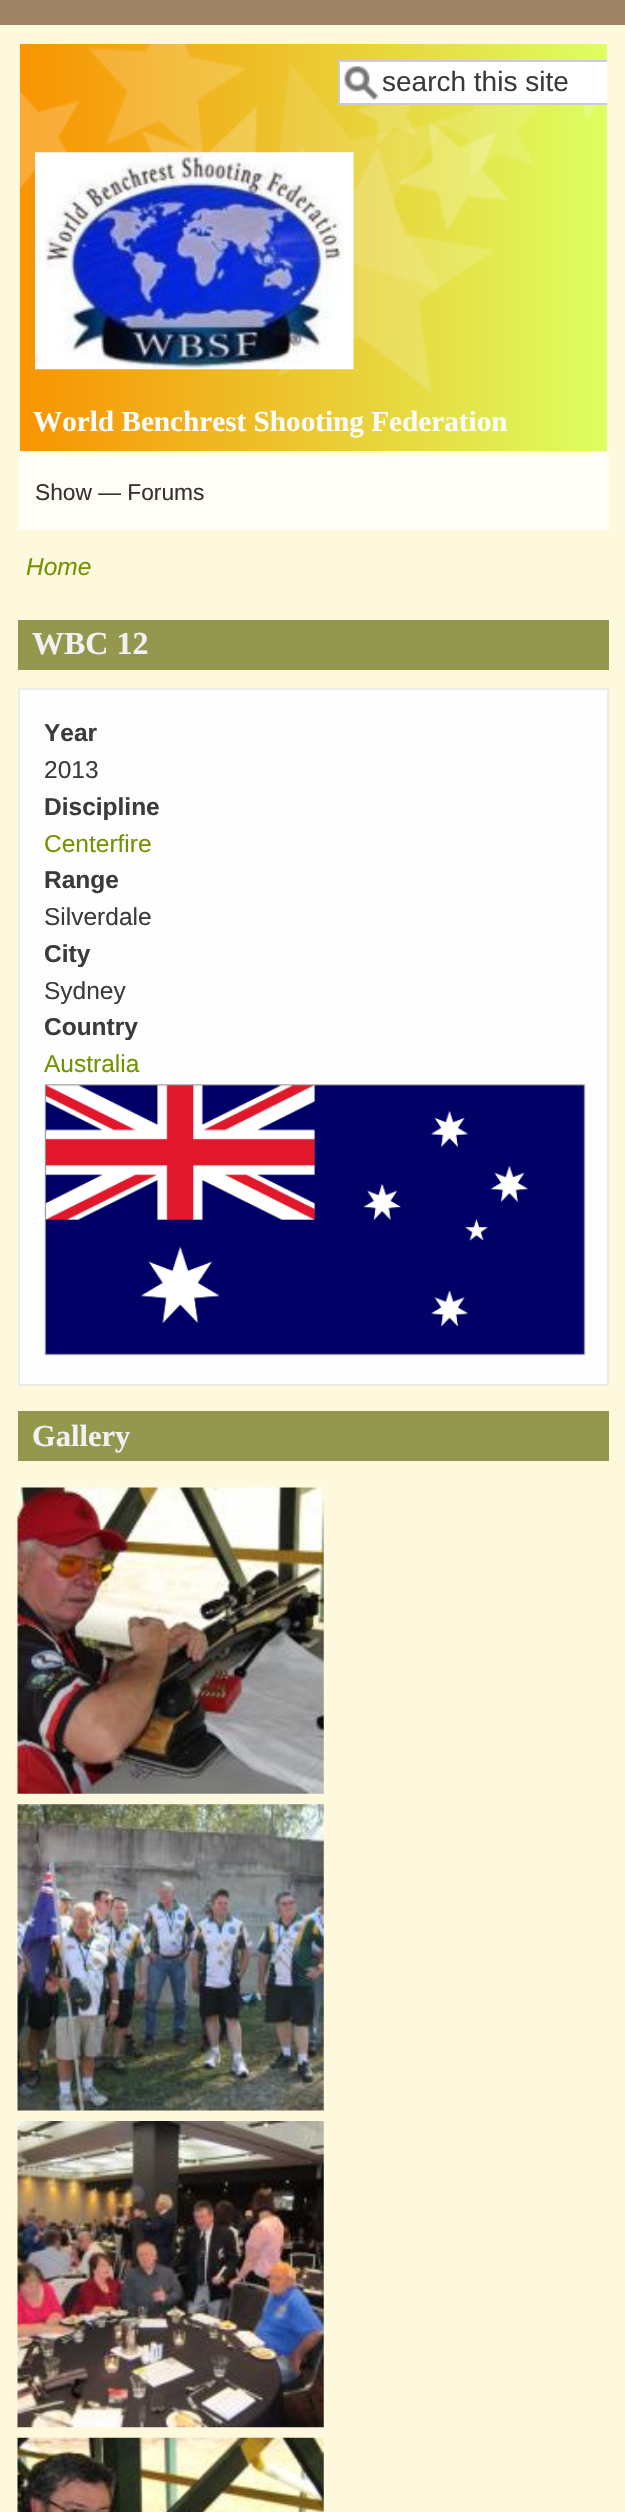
void draw(SkCanvas* canvas) {
	SkPaint fill;
	fill.setAntiAlias(true);
	auto makeFont = [&](const char* family, int weight, float size, bool italic = false) {
		SkFontStyle style(weight, SkFontStyle::kNormal_Width,
			italic ? SkFontStyle::kItalic_Slant : SkFontStyle::kUpright_Slant);
		SkFont result(fontMgr->matchFamilyStyle(family, style), size);
		result.setSubpixel(true);
		return result;
	};
	auto text = [&](const char* s, float x, float y, const SkFont& font) {
		canvas->drawString(s, x, y, font, fill);
	};
	auto box = [&](float l, float t, float r, float b) {
		canvas->drawRect(SkRect::MakeLTRB(l, t, r, b), fill);
	};
	auto picture = [&](const char* path, float l, float t, float r, float b) {
		auto image = SkImages::DeferredFromEncodedData(SkData::MakeFromFileName(path));
		canvas->drawImageRect(image, SkRect::MakeLTRB(l, t, r, b), SkSamplingOptions());
	};
	canvas->clear(0xFF9F8365);
	fill.setColor(0xFFFEF8DD);
	box(0, 25, 625, 2512);
	{
		const SkColor colors[] = {0xFFF99301, 0xFFDDFF61};
		const float stops[] = {0, 1};
		const SkPoint ends[] = {{19, 248}, {607, 248}};
		fill.setShader(SkGradientShader::MakeLinear(ends, colors, stops, 2, SkTileMode::kClamp));
		fill.setAlpha(255);
	}
	box(20, 44, 607, 451);
	picture("image0.png", 20, 44, 607, 392);
	fill.setShader(nullptr);
	fill.setColor(0xFFFFFFFF);
	box(340, 62, 607, 103);
	picture("image1.png", 344, 66, 379, 101);
	canvas->save();
	canvas->clipRect(SkRect::MakeLTRB(324, 44, 607, 137));
	fill.setStyle(SkPaint::kStroke_Style);
	fill.setStrokeWidth(2);
	fill.setColor(0xFFCCCCCC);
	canvas->drawRect(SkRect::MakeLTRB(339, 61, 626, 104), fill);
	canvas->restore();
	picture("image2.png", 35, 152, 354, 370);
	fill.setStyle(SkPaint::kFill_Style);
	fill.setColor(0xFFFFFDF5);
	box(18, 453, 609, 530);
	fill.setColor(0xFF94974E);
	box(18, 620, 609, 670);
	fill.setColor(0xFFFEFEFE);
	canvas->drawRect(SkRect::MakeLTRB(19, 689, 608, 1385), fill);
	fill.setStyle(SkPaint::kStroke_Style);
	fill.setColor(0xFFECECEC);
	canvas->drawRect(SkRect::MakeLTRB(19, 689, 608, 1385), fill);
	picture("image3.png", 44, 1084, 586, 1356);
	fill.setStyle(SkPaint::kFill_Style);
	fill.setColor(0xFF94974E);
	box(18, 1411, 609, 1461);
	picture("image4.png", 17, 1487, 324, 1794);
	picture("image5.png", 17, 1804, 324, 2111);
	picture("image6.png", 17, 2121, 324, 2428);
	picture("image7.png", 17, 2437, 324, 2512);
	auto font1 = makeFont("Liberation Sans", 400, 28);
	fill.setColor(0xFF3B3B3B);
	text("search this site", 382, 91, font1);
	auto font2 = makeFont("Liberation Serif", 700, 29.2f);
	fill.setColor(0xFFFCFCFC);
	text("World Benchrest Shooting Federation", 33, 431, font2);
	auto font3 = makeFont("Liberation Sans", 400, 22.75f);
	fill.setColor(0xFF333333);
	text("Show — Forums", 35, 500, font3);
	auto font4 = makeFont("Liberation Sans", 400, 24.5f, true);
	fill.setColor(0xFF739400);
	text("Home", 26, 575, font4);
	auto font5 = makeFont("Liberation Serif", 700, 32);
	fill.setColor(0xFFF1F1F1);
	text("WBC 12", 32, 654, font5);
	auto font6 = makeFont("Liberation Sans", 700, 24.5f);
	fill.setColor(0xFF3B3B3B);
	text("Year", 44, 741, font6);
	auto font7 = makeFont("Liberation Sans", 400, 24.5f);
	text("2013", 44, 778, font7);
	text("Discipline", 44, 815, font6);
	fill.setColor(0xFF739400);
	text("Centerfire", 44, 852, font7);
	fill.setColor(0xFF3B3B3B);
	text("Range", 44, 888, font6);
	text("Silverdale", 44, 925, font7);
	text("City", 44, 962, font6);
	text("Sydney", 44, 999, font7);
	text("Country", 44, 1035, font6);
	fill.setColor(0xFF739400);
	text("Australia", 44, 1072, font7);
	auto font8 = makeFont("Liberation Serif", 700, 30.5f);
	fill.setColor(0xFFF1F1F1);
	text("Gallery", 32, 1446, font8);
}
